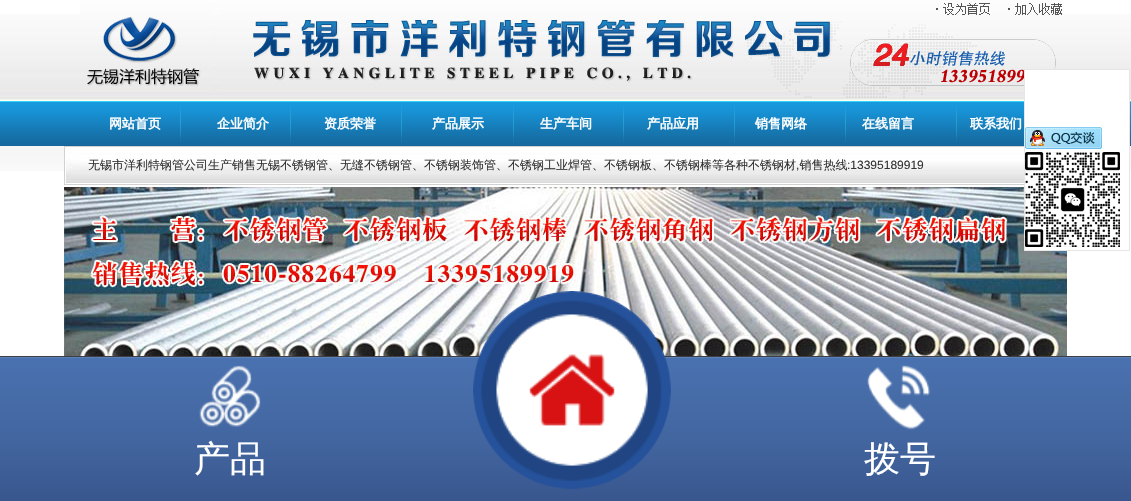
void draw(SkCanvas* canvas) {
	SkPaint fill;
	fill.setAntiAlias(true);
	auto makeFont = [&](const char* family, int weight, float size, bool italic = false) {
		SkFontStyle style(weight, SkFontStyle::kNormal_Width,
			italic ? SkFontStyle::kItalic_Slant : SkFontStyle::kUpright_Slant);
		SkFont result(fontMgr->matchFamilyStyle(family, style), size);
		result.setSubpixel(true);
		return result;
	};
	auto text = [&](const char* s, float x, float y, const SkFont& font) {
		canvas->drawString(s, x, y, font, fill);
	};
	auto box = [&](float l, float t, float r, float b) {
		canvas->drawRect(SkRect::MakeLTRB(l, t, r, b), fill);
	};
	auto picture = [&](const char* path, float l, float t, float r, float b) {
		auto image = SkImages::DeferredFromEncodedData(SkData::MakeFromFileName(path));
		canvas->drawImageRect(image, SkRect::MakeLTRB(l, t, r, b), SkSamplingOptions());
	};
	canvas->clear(0xFFFFFFFF);
	picture("image0.png", 0, 14, 1131, 171);
	picture("image1.png", 80, 0, 1064, 98);
	picture("image2.png", 0, 101, 1131, 146);
	picture("image3.png", 180, 106, 957, 143);
	picture("image4.png", 64, 146, 1024, 185);
	picture("image7.png", 64, 187, 1067, 356);
	fill.setColor(0xFFFFFFFF);
	canvas->drawRect(SkRect::MakeLTRB(1024.5f, 69.5f, 1129.5f, 250.5f), fill);
	fill.setStyle(SkPaint::kStroke_Style);
	fill.setStrokeWidth(1);
	fill.setColor(0xFFE6E6E6);
	canvas->drawRect(SkRect::MakeLTRB(1024.5f, 69.5f, 1129.5f, 250.5f), fill);
	picture("image5.png", 1025, 127, 1102, 149);
	picture("image6.png", 1025, 152, 1120, 247);
	fill.setStyle(SkPaint::kFill_Style);
	{
		const SkColor colors[] = {0xFF4A72B0, 0xFF42659F, 0xFF39568E};
		const float stops[] = {0, 0.6f, 1};
		const SkPoint ends[] = {{0, 357}, {0, 501}};
		fill.setShader(SkGradientShader::MakeLinear(ends, colors, stops, 3, SkTileMode::kClamp));
		fill.setAlpha(255);
	}
	box(0, 358, 1131, 501);
	fill.setShader(nullptr);
	fill.setColor(0xFF5C80B8);
	box(0, 357, 1131, 358);
	fill.setColor(0xFF3D3D46);
	box(0, 356, 1131, 357);
	picture("image8.png", 199, 365, 261, 427);
	picture("image9.png", 473, 291, 671, 489);
	picture("image10.png", 867, 365, 930, 430);
	auto font1 = makeFont("WenQuanYi Zen Hei", 700, 13);
	fill.setColor(0xFFFFFFFF);
	text("网站首页", 109, 128, font1);
	text("企业简介", 217, 128, font1);
	text("资质荣誉", 324, 128, font1);
	text("产品展示", 432, 128, font1);
	text("生产车间", 540, 128, font1);
	text("产品应用", 647, 128, font1);
	text("销售网络", 755, 128, font1);
	text("在线留言", 862, 128, font1);
	text("联系我们", 970, 128, font1);
	auto font2 = makeFont("WenQuanYi Zen Hei", 500, 12);
	fill.setColor(0xFF333333);
	text("无锡市洋利特钢管公司生产销售无锡不锈钢管、无缝不锈钢管、不锈钢装饰管、不锈钢工业焊管、不锈钢板、不锈钢棒等各种不锈钢材 销售热线", 88, 169, font2);
	auto font3 = makeFont("Liberation Sans", 400, 12);
	text(":13395189919", 847, 169, font3);
	text(",", 796, 169, font3);
	auto font4 = makeFont("WenQuanYi Zen Hei", 500, 36);
	fill.setColor(0xFFFFFFFF);
	text("产品", 194, 471, font4);
	text("拨号", 864, 471, font4);
}
